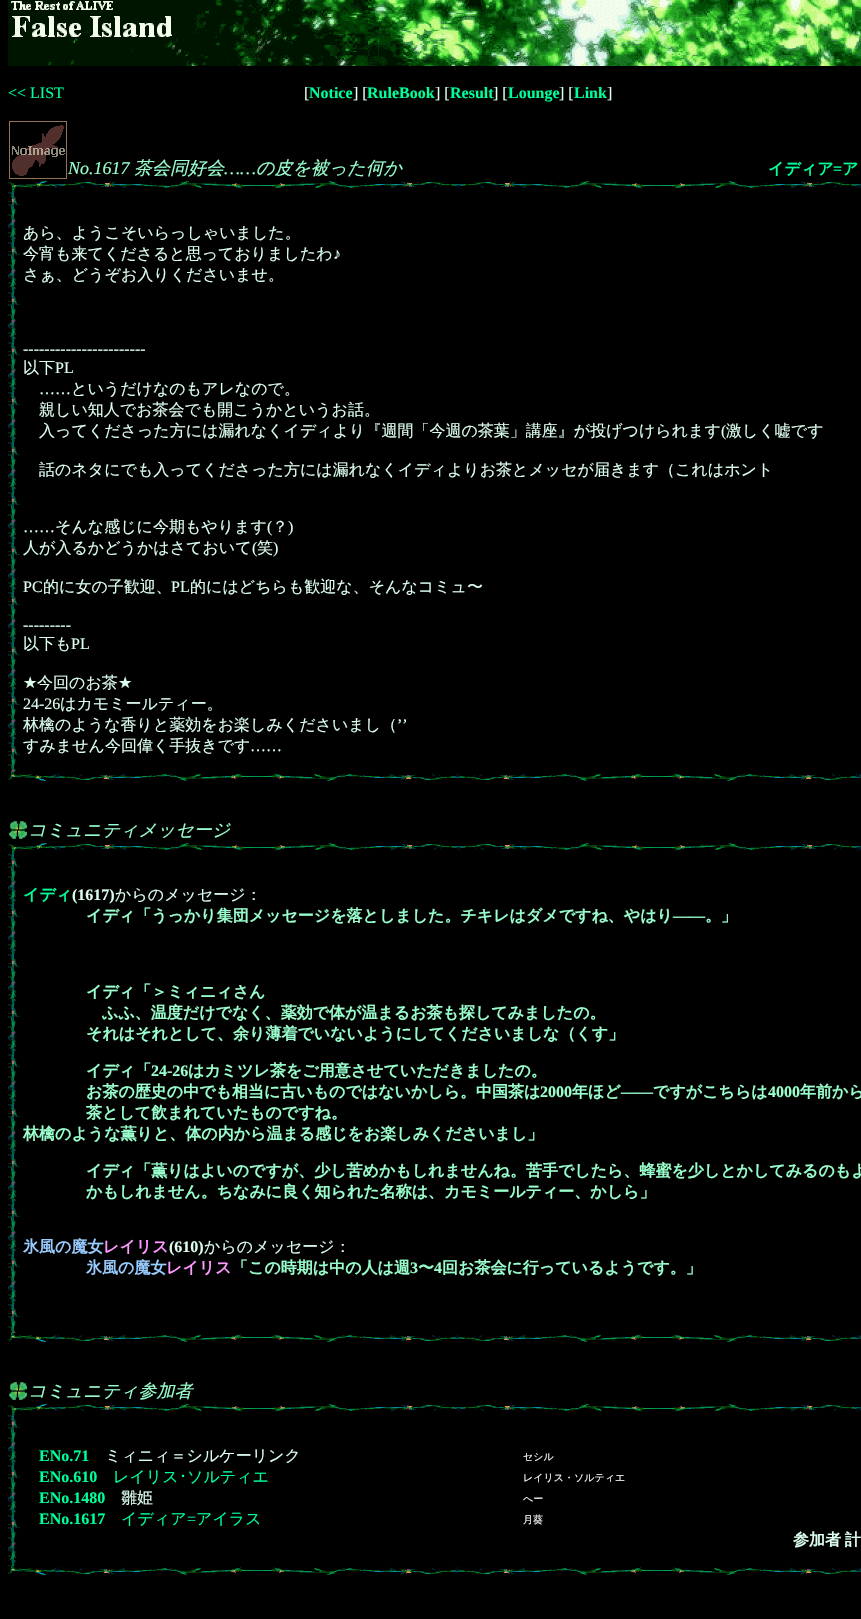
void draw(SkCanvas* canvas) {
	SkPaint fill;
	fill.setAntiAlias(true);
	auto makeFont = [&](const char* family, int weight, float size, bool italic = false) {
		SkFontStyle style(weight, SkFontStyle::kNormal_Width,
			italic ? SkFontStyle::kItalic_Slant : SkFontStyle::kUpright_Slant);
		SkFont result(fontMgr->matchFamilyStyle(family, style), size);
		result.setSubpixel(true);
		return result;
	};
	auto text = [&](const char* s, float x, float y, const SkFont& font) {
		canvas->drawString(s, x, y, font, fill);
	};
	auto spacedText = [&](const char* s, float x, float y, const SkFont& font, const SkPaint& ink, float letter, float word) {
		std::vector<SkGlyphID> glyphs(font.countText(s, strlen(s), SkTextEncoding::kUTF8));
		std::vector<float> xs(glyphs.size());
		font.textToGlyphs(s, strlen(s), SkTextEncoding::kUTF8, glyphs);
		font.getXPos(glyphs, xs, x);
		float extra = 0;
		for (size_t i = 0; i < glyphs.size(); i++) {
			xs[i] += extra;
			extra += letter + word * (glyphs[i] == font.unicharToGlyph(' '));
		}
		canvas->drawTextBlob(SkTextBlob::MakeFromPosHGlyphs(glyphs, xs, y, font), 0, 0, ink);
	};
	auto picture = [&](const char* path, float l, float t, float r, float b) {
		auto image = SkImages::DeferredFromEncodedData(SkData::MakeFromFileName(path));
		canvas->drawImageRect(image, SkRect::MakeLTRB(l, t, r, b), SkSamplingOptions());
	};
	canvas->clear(0xFF000000);
	picture("image0.png", 8, 0, 861, 66);
	picture("image1.png", 9, 121, 67, 179);
	picture("image2.png", 8, 181, 861, 190);
	picture("image3.png", 8, 190, 20, 772);
	picture("image4.png", 8, 772, 861, 781);
	picture("image5.png", 9, 821, 27, 839);
	picture("image2.png", 8, 843, 861, 852);
	picture("image6.png", 8, 852, 20, 1333);
	picture("image4.png", 8, 1333, 861, 1342);
	picture("image5.png", 9, 1382, 27, 1400);
	picture("image2.png", 8, 1404, 861, 1413);
	picture("image7.png", 8, 1413, 20, 1566);
	picture("image4.png", 8, 1566, 861, 1575);
	auto font1 = makeFont("Liberation Serif", 400, 16);
	fill.setColor(0xFF00FF99);
	text("<< LIST", 8, 98, font1);
	fill.setColor(0xFFDDFFEE);
	text("[", 304, 98, font1);
	auto font2 = makeFont("Liberation Serif", 700, 16);
	fill.setColor(0xFF00FF99);
	text("Notice", 309, 98, font2);
	fill.setColor(0xFFDDFFEE);
	text("] [", 353, 98, font1);
	fill.setColor(0xFF00FF99);
	text("RuleBook", 367, 98, font2);
	fill.setColor(0xFFDDFFEE);
	text("] [", 435, 98, font1);
	fill.setColor(0xFF00FF99);
	text("Result", 450, 98, font2);
	fill.setColor(0xFFDDFFEE);
	text("] [", 493, 98, font1);
	fill.setColor(0xFF00FF99);
	text("Lounge", 508, 98, font2);
	fill.setColor(0xFFDDFFEE);
	text("] [", 559, 98, font1);
	fill.setColor(0xFF00FF99);
	text("Link", 574, 98, font2);
	fill.setColor(0xFFDDFFEE);
	text("]", 607, 98, font1);
	auto font3 = makeFont("Liberation Serif", 400, 18, true);
	fill.setColor(0xFF99FFCC);
	text("No.1617", 68, 174, font3);
	auto font4 = makeFont("WenQuanYi Zen Hei", 500, 18, true);
	text("茶会同好会", 134, 174, font4);
	text("……", 224, 174, font3);
	text("の皮を被った何か", 256, 174, font4);
	auto font5 = makeFont("WenQuanYi Zen Hei", 700, 16);
	fill.setColor(0xFF00FF99);
	text("イディア", 768, 174, font5);
	text("=", 833, 174, font2);
	text("ア", 842, 174, font5);
	auto font6 = makeFont("WenQuanYi Zen Hei", 500, 16);
	fill.setColor(0xFFDDFFEE);
	text("あら、ようこそいらっしゃいました。", 23, 238, font6);
	text("今宵も来てくださると思っておりましたわ", 23, 259, font6);
	text("♪", 333, 259, font1);
	text("さぁ、どうぞお入りくださいませ。", 23, 280, font6);
	text("-----------------------", 23, 354, font1);
	text("以下", 23, 373, font6);
	text("PL", 55, 373, font1);
	text("……", 39, 394, font1);
	text("というだけなのもアレなので。", 71, 394, font6);
	text("親しい知人でお茶会でも開こうかというお話。", 39, 415, font6);
	text("入ってくださった方には漏れなくイディより『週間「今週の茶葉」講座』が投げつけられます", 39, 436, font6);
	text("(", 721, 436, font1);
	text("激しく嘘です", 726, 436, font6);
	text("話のネタにでも入ってくださった方には漏れなくイディよりお茶とメッセが届きます（これはホント", 39, 475, font6);
	text("……", 23, 532, font1);
	text("そんな感じに今期もやります", 55, 532, font6);
	text("(", 267, 532, font1);
	text("？", 272, 532, font6);
	text(")", 288, 532, font1);
	text("人が入るかどうかはさておいて", 23, 553, font6);
	text("(", 252, 553, font1);
	text("笑", 257, 553, font6);
	text(")", 273, 553, font1);
	text("PC", 23, 592, font1);
	text("的に女の子歓迎、", 43, 592, font6);
	text("PL", 171, 592, font1);
	text("的にはどちらも歓迎な、そんなコミュ〜", 190, 592, font6);
	text("---------", 23, 630, font1);
	text("以下も", 23, 649, font6);
	text("PL", 71, 649, font1);
	auto font7 = makeFont("DejaVu Sans", 400, 16);
	text("★", 23, 688, font7);
	text("今回のお茶", 37, 688, font6);
	text("★", 118, 688, font7);
	text("24-26", 23, 709, font1);
	text("はカモミールティー。", 60, 709, font6);
	text("林檎のような香りと薬効をお楽しみくださいまし（", 23, 730, font6);
	text("’’", 397, 730, font1);
	text("すみません今回偉く手抜きです", 23, 751, font6);
	text("……", 250, 751, font1);
	fill.setColor(0xFF99FFCC);
	text("コミュニティメッセージ", 28, 836, font4);
	fill.setColor(0xFF00FF99);
	text("イディ", 23, 900, font5);
	fill.setColor(0xFFDDFFEE);
	text("(1617)", 72, 900, font2);
	text("からのメッセージ：", 115, 900, font6);
	fill.setColor(0xFF99FFCC);
	text("イディ「うっかり集団メッセージを落としました。チキレはダメですね、やはり", 86, 921, font5);
	text("――", 673, 921, font2);
	text("。」", 705, 921, font5);
	text("イディ「＞ミィニィさん", 86, 997, font5);
	text("ふふ、温度だけでなく、薬効で体が温まるお茶も探してみましたの。", 102, 1018, font5);
	text("それはそれとして、余り薄着でいないようにしてくださいましな（くす」", 86, 1039, font5);
	text("イディ「", 86, 1076, font5);
	text("24-26", 151, 1076, font2);
	text("はカミツレ茶をご用意させていただきましたの。", 188, 1076, font5);
	text("お茶の歴史の中でも相当に古いものではないかしら。中国茶は", 86, 1097, font5);
	text("2000", 540, 1097, font2);
	text("年ほど", 572, 1097, font5);
	text("――", 621, 1097, font2);
	text("ですがこちらは", 653, 1097, font5);
	text("4000", 768, 1097, font2);
	text("年前から", 800, 1097, font5);
	text("茶として飲まれていたものですね。", 86, 1118, font5);
	text("林檎のような薫りと、体の内から温まる感じをお楽しみくださいまし」", 23, 1139, font5);
	text("イディ「薫りはよいのですが、少し苦めかもしれませんね。苦手でしたら、蜂蜜を少しとかしてみるのもよ", 86, 1176, font5);
	text("かもしれません。ちなみに良く知られた名称は、カモミールティー、かしら」", 86, 1197, font5);
	fill.setColor(0xFF99CCFF);
	text("氷風の魔女", 23, 1252, font5);
	fill.setColor(0xFFFF99FF);
	text("レイリス", 103, 1252, font5);
	fill.setColor(0xFFDDFFEE);
	text("(610)", 169, 1252, font2);
	text("からのメッセージ：", 204, 1252, font6);
	fill.setColor(0xFF99CCFF);
	text("氷風の魔女", 86, 1273, font5);
	fill.setColor(0xFFFF99FF);
	text("レイリス", 166, 1273, font5);
	fill.setColor(0xFF99FFCC);
	text("「この時期は中の人は週", 232, 1273, font5);
	text("3", 410, 1273, font2);
	text("〜", 418, 1273, font5);
	text("4", 434, 1273, font2);
	text("回お茶会に行っているようです。」", 442, 1273, font5);
	text("コミュニティ参加者", 28, 1397, font4);
	fill.setColor(0xFF00FF99);
	text("ENo.71", 39, 1461, font2);
	fill.setColor(0xFFDDFFEE);
	text("ミィニィ＝シルケーリンク", 105, 1461, font6);
	auto font8 = makeFont("WenQuanYi Zen Hei", 500, 10);
	fill.setColor(0xFFFFFFFF);
	text("セシル", 523, 1460, font8);
	fill.setColor(0xFF00FF99);
	text("ENo.610", 39, 1482, font2);
	text("レイリス", 113, 1482, font6);
	auto font9 = makeFont("IPAGothic", 400, 16);
	text("･", 179, 1482, font9);
	text("ソルティエ", 187, 1482, font6);
	fill.setColor(0xFFFFFFFF);
	text("レイリス・ソルティエ", 523, 1481, font8);
	fill.setColor(0xFF00FF99);
	text("ENo.1480", 39, 1503, font2);
	fill.setColor(0xFFDDFFEE);
	text("雛姫", 121, 1503, font6);
	fill.setColor(0xFFFFFFFF);
	text("へー", 523, 1502, font8);
	fill.setColor(0xFF00FF99);
	text("ENo.1617", 39, 1524, font2);
	text("イディア", 121, 1524, font6);
	text("=", 187, 1524, font1);
	text("アイラス", 196, 1524, font6);
	fill.setColor(0xFFFFFFFF);
	text("月葵", 523, 1523, font8);
	fill.setColor(0xFFDDFFEE);
	spacedText("参加者 計", 793, 1545, font5, fill, 0, -1);
}
